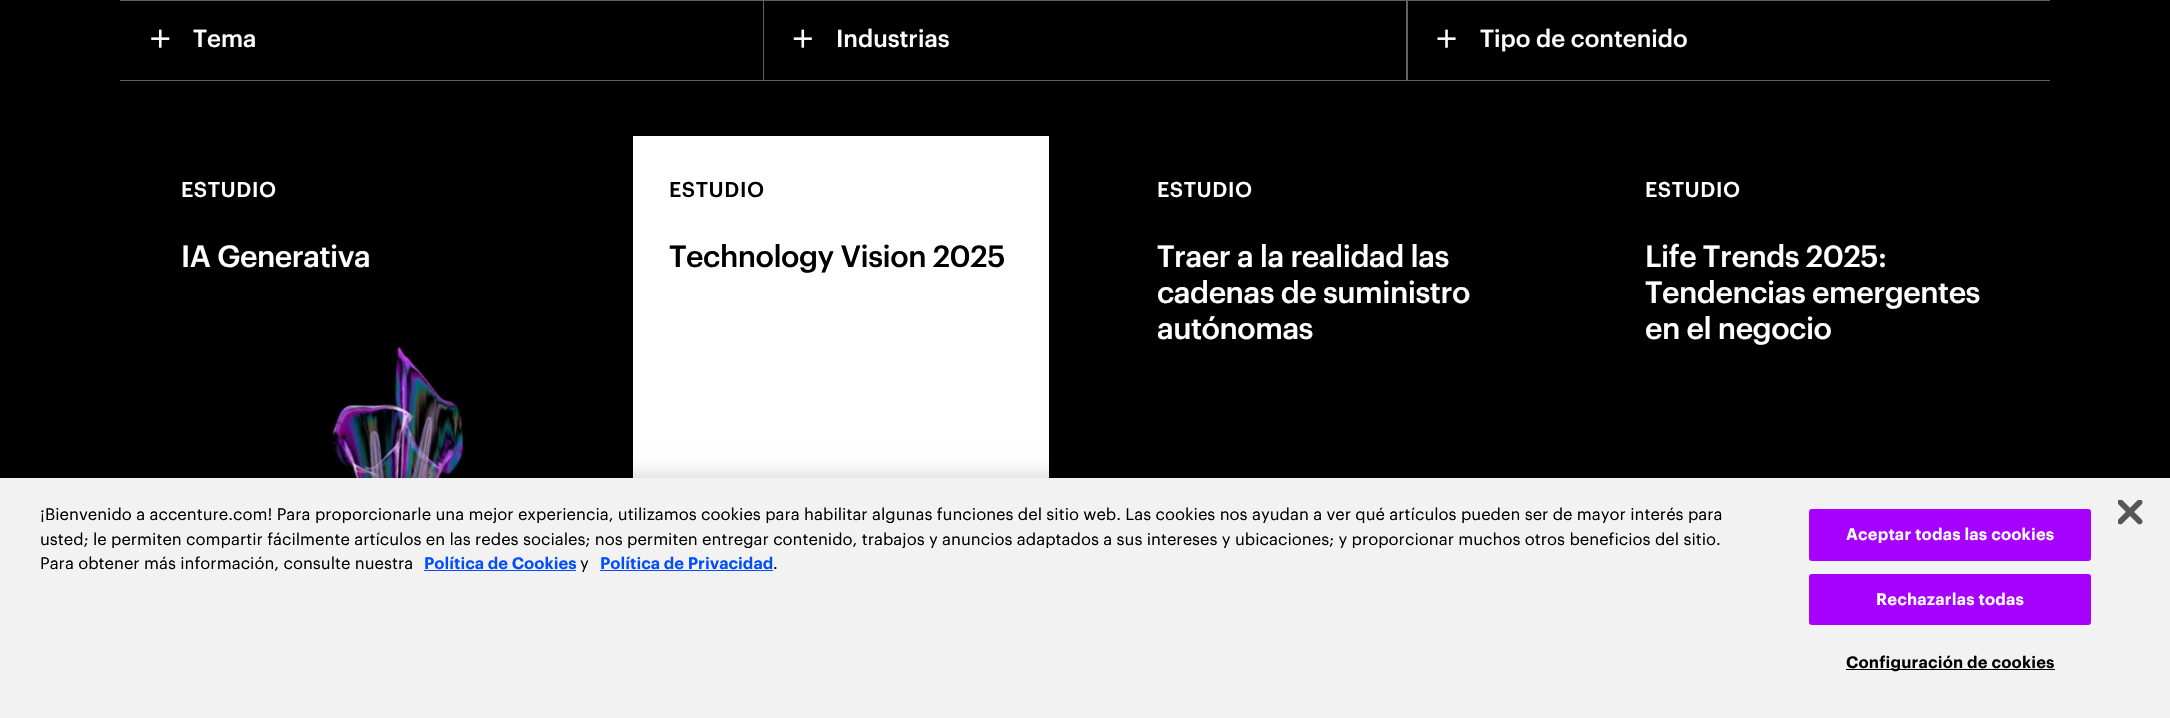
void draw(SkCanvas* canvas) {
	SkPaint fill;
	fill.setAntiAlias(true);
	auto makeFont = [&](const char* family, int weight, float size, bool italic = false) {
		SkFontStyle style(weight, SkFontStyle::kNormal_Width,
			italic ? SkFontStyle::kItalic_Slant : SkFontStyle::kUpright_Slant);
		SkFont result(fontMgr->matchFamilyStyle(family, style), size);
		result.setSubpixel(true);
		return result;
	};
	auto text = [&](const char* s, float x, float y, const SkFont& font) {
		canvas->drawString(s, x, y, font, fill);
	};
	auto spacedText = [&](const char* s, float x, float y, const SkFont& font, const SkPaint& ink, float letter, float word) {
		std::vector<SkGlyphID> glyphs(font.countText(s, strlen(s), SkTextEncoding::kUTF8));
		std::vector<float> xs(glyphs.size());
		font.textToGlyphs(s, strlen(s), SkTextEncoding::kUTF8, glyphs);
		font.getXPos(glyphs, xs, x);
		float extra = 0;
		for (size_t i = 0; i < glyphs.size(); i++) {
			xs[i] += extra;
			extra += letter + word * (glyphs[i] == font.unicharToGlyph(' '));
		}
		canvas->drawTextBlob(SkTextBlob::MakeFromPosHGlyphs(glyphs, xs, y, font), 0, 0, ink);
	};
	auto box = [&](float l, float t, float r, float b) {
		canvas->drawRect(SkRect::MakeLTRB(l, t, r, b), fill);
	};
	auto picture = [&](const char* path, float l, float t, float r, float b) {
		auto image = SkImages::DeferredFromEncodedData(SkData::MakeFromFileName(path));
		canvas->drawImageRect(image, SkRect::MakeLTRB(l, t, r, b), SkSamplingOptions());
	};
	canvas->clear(0xFF000000);
	fill.setColor(0xFF616160);
	box(120, 0, 2050, 81);
	fill.setColor(0xFF000000);
	box(120, 1, 763, 80);
	picture("image0.png", 151, 29, 170, 48);
	box(764, 1, 1406, 80);
	picture("image1.png", 793, 29, 812, 48);
	box(1408, 1, 2050, 80);
	picture("image2.png", 1437, 29, 1456, 48);
	picture("image3.png", 236, 346, 561, 478);
	fill.setColor(0xFFFFFFFF);
	box(633, 136, 1049, 478);
	fill.setColor(0x33000000);
	fill.setMaskFilter(SkMaskFilter::MakeBlur(kNormal_SkBlurStyle, 11));
	canvas->drawRect(SkRect::MakeLTRB(0, 478, 2170, 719), fill);
	fill.setMaskFilter(nullptr);
	fill.setColor(0xFFF2F2F2);
	box(0, 478, 2170, 718);
	fill.setColor(0xFF004DFF);
	box(424, 570, 576, 571);
	box(600, 570, 773, 571);
	fill.setColor(0xFFA600FF);
	canvas->drawRoundRect(SkRect::MakeLTRB(1809.5f, 509.5f, 2090.5f, 560.5f), 2, 2, fill);
	fill.setStyle(SkPaint::kStroke_Style);
	fill.setStrokeWidth(1);
	canvas->drawRoundRect(SkRect::MakeLTRB(1809.5f, 509.5f, 2090.5f, 560.5f), 2, 2, fill);
	fill.setStyle(SkPaint::kFill_Style);
	canvas->drawRoundRect(SkRect::MakeLTRB(1809.5f, 574.5f, 2090.5f, 624.5f), 2, 2, fill);
	fill.setStyle(SkPaint::kStroke_Style);
	canvas->drawRoundRect(SkRect::MakeLTRB(1809.5f, 574.5f, 2090.5f, 624.5f), 2, 2, fill);
	fill.setStyle(SkPaint::kFill_Style);
	fill.setColor(0xFF000000);
	box(1846, 669, 2055, 670);
	picture("image4.png", 2118, 500, 2143, 525);
	auto font1 = makeFont("Graphik", 500, 24);
	fill.setColor(0xFFFFFFFF);
	spacedText("Tema", 193, 47, font1, fill, -0.1f, 0);
	spacedText("Industrias", 836, 47, font1, fill, -0.1f, 0);
	spacedText("Tipo de contenido", 1480, 47, font1, fill, -0.1f, 0);
	auto font2 = makeFont("Graphik", 500, 21);
	spacedText("ESTUDIO", 181, 197, font2, fill, 0.5f, 0);
	auto font3 = makeFont("Graphik", 500, 30.1f);
	spacedText("IA Generativa", 181, 267, font3, fill, -0.6f, 0);
	fill.setColor(0xFF000000);
	spacedText("ESTUDIO", 669, 197, font2, fill, 0.5f, 0);
	spacedText("Technology Vision 2025", 669, 267, font3, fill, -0.6f, 0);
	fill.setColor(0xFFFFFFFF);
	spacedText("ESTUDIO", 1157, 197, font2, fill, 0.5f, 0);
	spacedText("Traer a la realidad las", 1157, 267, font3, fill, -0.6f, 0);
	spacedText("cadenas de suministro", 1157, 303, font3, fill, -0.6f, 0);
	spacedText("autónomas", 1157, 339, font3, fill, -0.6f, 0);
	spacedText("ESTUDIO", 1645, 197, font2, fill, 0.5f, 0);
	spacedText("Life Trends 2025:", 1645, 267, font3, fill, -0.6f, 0);
	spacedText("Tendencias emergentes", 1645, 303, font3, fill, -0.6f, 0);
	spacedText("en el negocio", 1645, 339, font3, fill, -0.6f, 0);
	auto font4 = makeFont("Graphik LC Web", 400, 16.26f);
	fill.setColor(0xFF000000);
	text("¡Bienvenido a accenture.com! Para proporcionarle una mejor experiencia, utilizamos cookies para habilitar algunas funciones del sitio web. Las cookies nos ayudan a ver qué artículos pueden ser de mayor interés para", 40, 520, font4);
	text("usted; le permiten compartir fácilmente artículos en las redes sociales; nos permiten entregar contenido, trabajos y anuncios adaptados a sus intereses y ubicaciones; y proporcionar muchos otros beneficios del sitio.", 40, 545, font4);
	text("Para obtener más información, consulte nuestra", 40, 569, font4);
	auto font5 = makeFont("Graphik LC Web", 600, 16.26f);
	fill.setColor(0xFF004DFF);
	text("Política de Cookies", 424, 569, font5);
	fill.setColor(0xFF000000);
	text("y", 580, 569, font4);
	fill.setColor(0xFF004DFF);
	text("Política de Privacidad", 600, 569, font5);
	fill.setColor(0xFF000000);
	text(".", 773, 569, font4);
	fill.setColor(0xFFFFFFFF);
	spacedText("Aceptar todas las cookies", 1846, 540, font5, fill, 0.15f, 0);
	spacedText("Rechazarlas todas", 1876, 605, font5, fill, 0.15f, 0);
	fill.setColor(0xFF000000);
	spacedText("Configuración de cookies", 1846, 668, font5, fill, 0.15f, 0);
}
